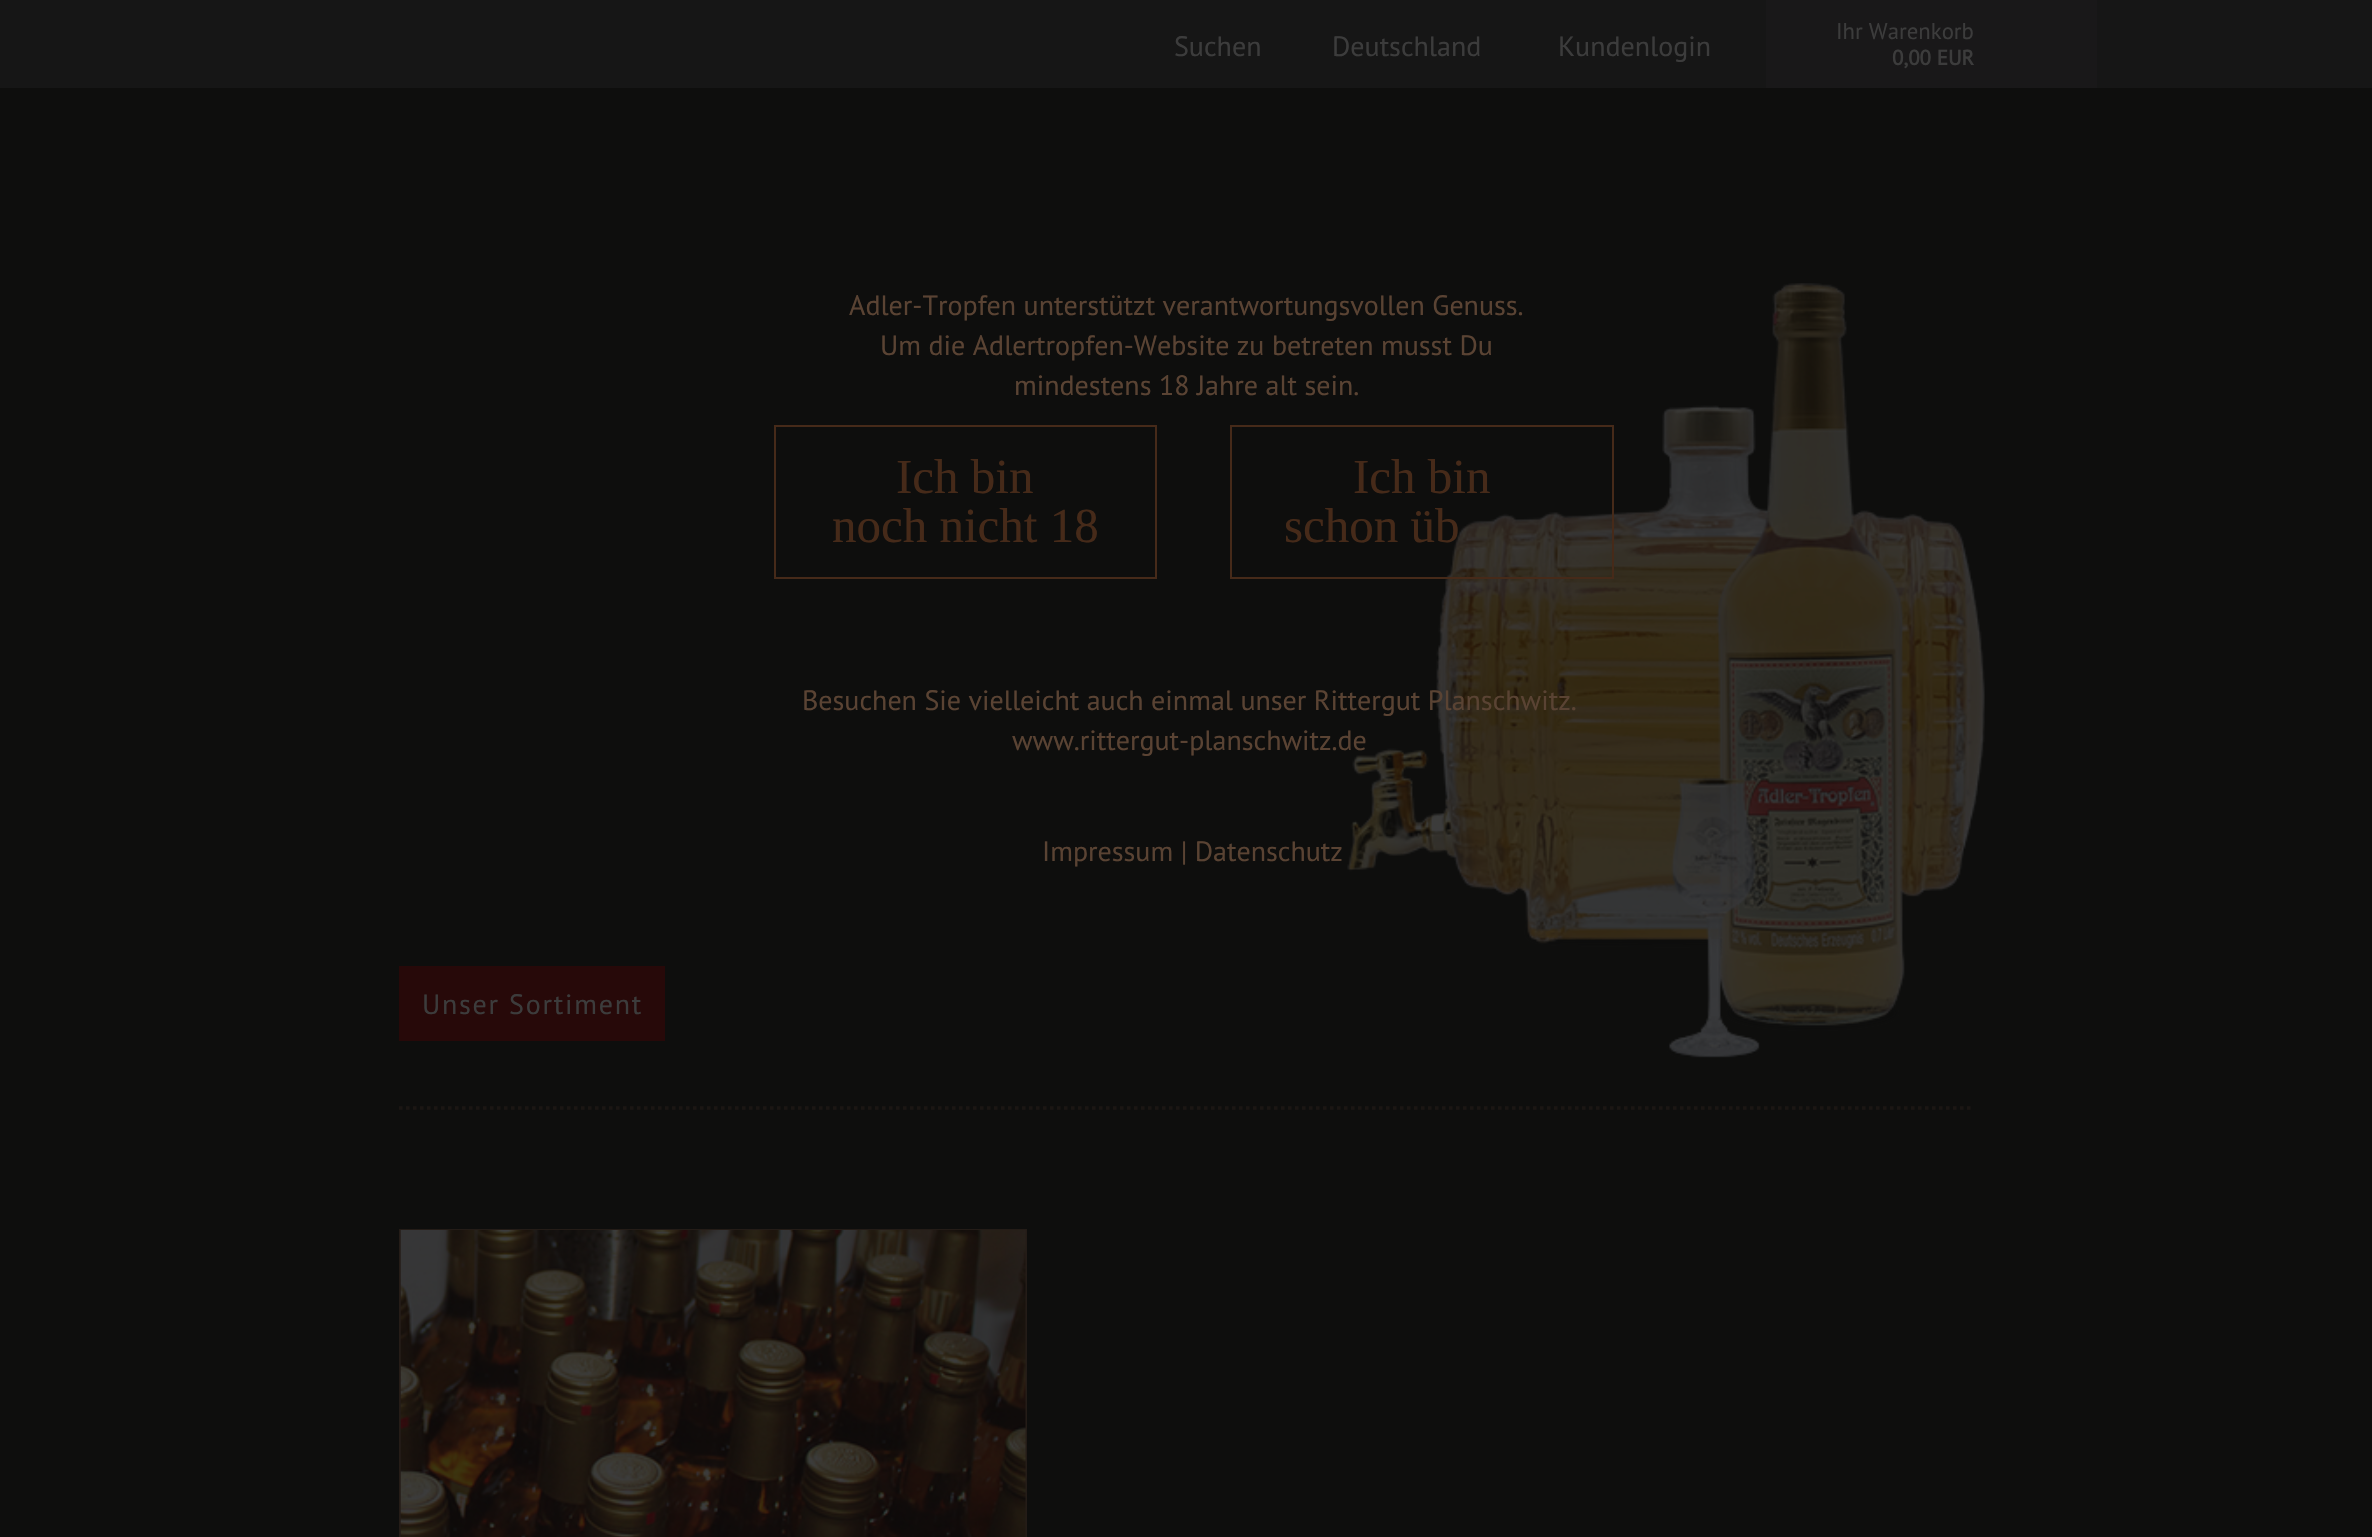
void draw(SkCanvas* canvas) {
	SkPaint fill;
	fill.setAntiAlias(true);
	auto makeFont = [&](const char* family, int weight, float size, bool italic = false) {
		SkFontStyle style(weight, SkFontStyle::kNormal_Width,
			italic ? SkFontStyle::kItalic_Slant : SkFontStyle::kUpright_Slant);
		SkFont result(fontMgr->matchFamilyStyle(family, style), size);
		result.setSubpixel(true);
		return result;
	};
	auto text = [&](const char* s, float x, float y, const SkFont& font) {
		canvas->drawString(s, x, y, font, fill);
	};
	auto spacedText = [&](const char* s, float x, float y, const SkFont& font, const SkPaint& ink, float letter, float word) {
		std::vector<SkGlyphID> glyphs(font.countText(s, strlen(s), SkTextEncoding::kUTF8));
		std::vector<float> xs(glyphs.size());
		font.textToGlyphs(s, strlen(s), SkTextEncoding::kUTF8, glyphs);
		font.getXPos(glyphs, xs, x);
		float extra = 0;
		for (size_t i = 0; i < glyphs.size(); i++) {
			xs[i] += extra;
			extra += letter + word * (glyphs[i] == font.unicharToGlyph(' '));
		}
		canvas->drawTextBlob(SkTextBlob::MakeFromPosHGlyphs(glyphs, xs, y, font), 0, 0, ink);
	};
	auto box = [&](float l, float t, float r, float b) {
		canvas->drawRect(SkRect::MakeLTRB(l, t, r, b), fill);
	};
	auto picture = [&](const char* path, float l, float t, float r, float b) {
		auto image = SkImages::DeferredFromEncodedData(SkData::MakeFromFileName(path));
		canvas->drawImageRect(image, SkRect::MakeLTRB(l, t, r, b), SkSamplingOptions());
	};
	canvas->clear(0xFF0E0E0D);
	fill.setColor(0xFF161616);
	box(0, 0, 2372, 88);
	fill.setColor(0xFF191819);
	box(1766, 0, 2097, 88);
	fill.setColor(0xFF270909);
	box(399, 966, 665, 1041);
	picture("image0.png", 1347, 283, 1985, 1058);
	fill.setStyle(SkPaint::kStroke_Style);
	fill.setStrokeWidth(3.5f);
	fill.setColor(0xFF1B1613);
	fill.setPathEffect(SkDashPathEffect::Make({{3.5f, 3.5f}}, 0));
	canvas->drawPath(SkPathBuilder().moveTo(399, 1108).lineTo(1974, 1108).detach(), fill);
	fill.setPathEffect(nullptr);
	fill.setStrokeWidth(2);
	fill.setColor(0xFF241C17);
	canvas->drawRect(SkRect::MakeLTRB(400, 1230, 1026, 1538), fill);
	picture("image1.png", 400, 1230, 1026, 1537);
	fill.setColor(0xFF462A19);
	canvas->drawRect(SkRect::MakeLTRB(775, 426, 1156, 578), fill);
	canvas->drawRect(SkRect::MakeLTRB(1231, 426, 1613, 578), fill);
	auto font1 = makeFont("PT Sans", 400, 28);
	fill.setStyle(SkPaint::kFill_Style);
	fill.setColor(0xFF3C3C3C);
	text("Suchen", 1174, 56, font1);
	text("Deutschland", 1332, 56, font1);
	text("Kundenlogin", 1558, 56, font1);
	auto font2 = makeFont("PT Sans", 400, 22.75f);
	text("Ihr Warenkorb", 1836, 39, font2);
	auto font3 = makeFont("PT Sans", 700, 21);
	text("0,00 EUR", 1892, 65, font3);
	spacedText("Unser Sortiment", 422, 1014, font1, fill, 1.75f, 0);
	fill.setColor(0xFF5A4333);
	text("Adler-Tropfen unterstützt verantwortungsvollen Genuss.", 849, 315, font1);
	text("Um die Adlertropfen-Website zu betreten musst Du", 880, 355, font1);
	text("mindestens 18 Jahre alt sein.", 1014, 395, font1);
	auto font4 = makeFont("Liberation Serif", 400, 49);
	fill.setColor(0xFF462A19);
	text("Ich bin", 896, 493, font4);
	text("noch nicht 18", 832, 542, font4);
	text("Ich bin", 1353, 493, font4);
	text("schon üb", 1284, 542, font4);
	fill.setColor(0xFF5A4333);
	text("Besuchen Sie vielleicht auch einmal unser Rittergut Planschwitz.", 802, 710, font1);
	text("www.rittergut-planschwitz.de", 1012, 750, font1);
	text("Impressum | Datenschutz", 1042, 861, font1);
}
